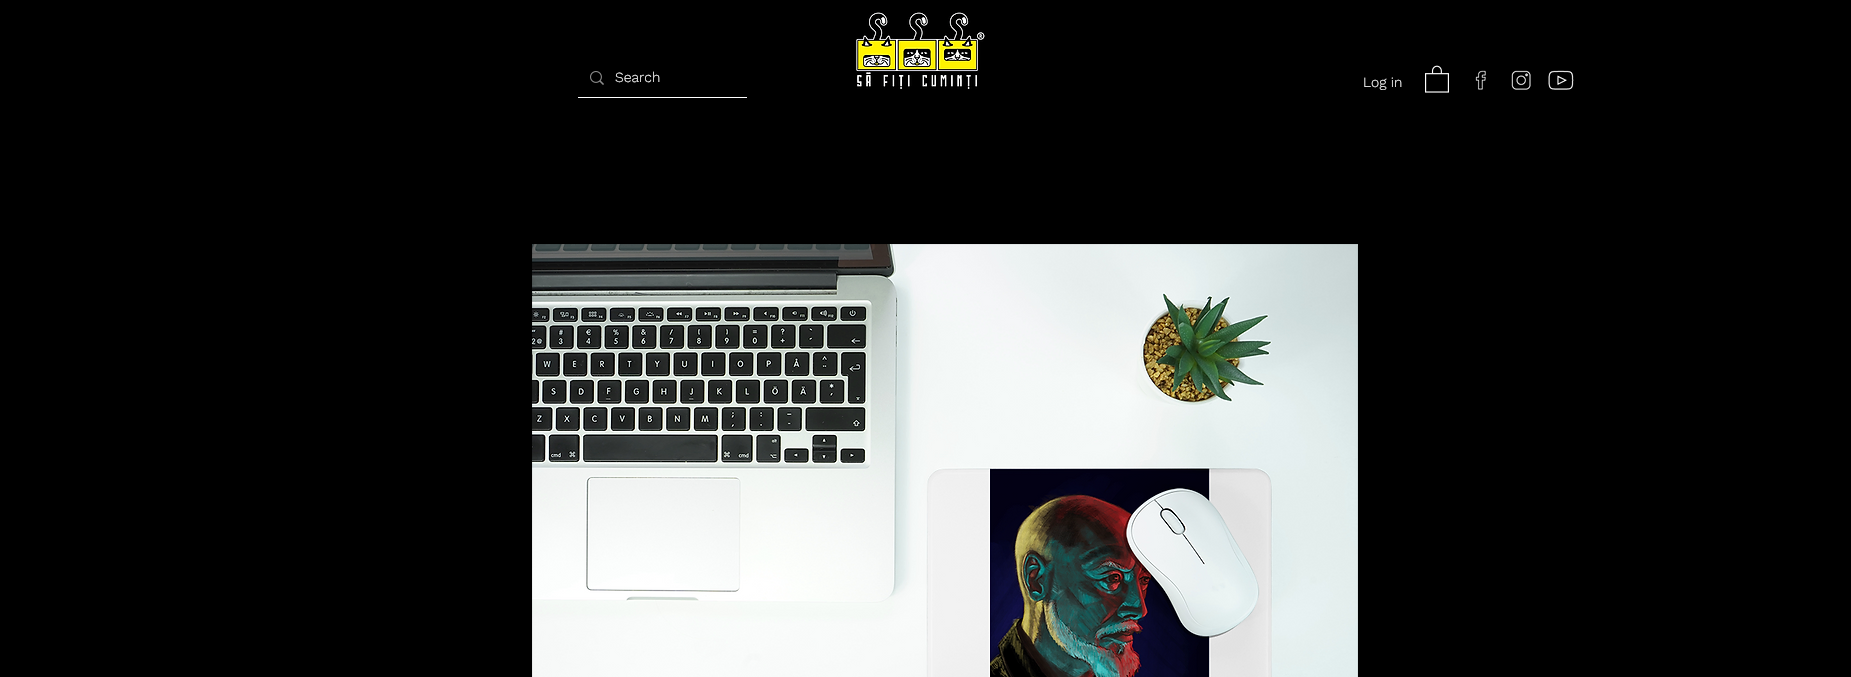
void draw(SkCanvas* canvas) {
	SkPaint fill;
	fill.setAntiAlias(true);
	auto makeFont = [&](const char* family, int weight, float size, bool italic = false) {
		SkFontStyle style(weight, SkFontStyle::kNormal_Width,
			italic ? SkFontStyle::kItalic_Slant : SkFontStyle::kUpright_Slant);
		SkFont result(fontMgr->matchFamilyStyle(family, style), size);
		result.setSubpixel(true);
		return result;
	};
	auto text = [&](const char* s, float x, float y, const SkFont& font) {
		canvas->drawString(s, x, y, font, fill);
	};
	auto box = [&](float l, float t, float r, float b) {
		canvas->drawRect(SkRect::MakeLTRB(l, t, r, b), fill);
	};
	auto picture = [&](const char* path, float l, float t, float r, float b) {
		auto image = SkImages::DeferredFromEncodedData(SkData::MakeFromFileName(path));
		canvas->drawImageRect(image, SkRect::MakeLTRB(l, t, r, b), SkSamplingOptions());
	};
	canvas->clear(0xFF000000);
	fill.setColor(0xFFFFFFFF);
	box(578, 97, 747, 98);
	picture("image0.png", 590, 71, 604, 85);
	picture("image1.png", 856, 12, 985, 89);
	picture("image2.png", 1425, 65, 1449, 93);
	picture("image3.png", 1475, 70, 1486, 90);
	picture("image4.png", 1511, 70, 1531, 90);
	picture("image5.png", 1548, 70, 1574, 90);
	picture("image6.png", 532, 244, 1358, 677);
	auto font1 = makeFont("Work Sans", 300, 14);
	text("Search", 615, 82, font1);
	text("Log in", 1363, 87, font1);
}
